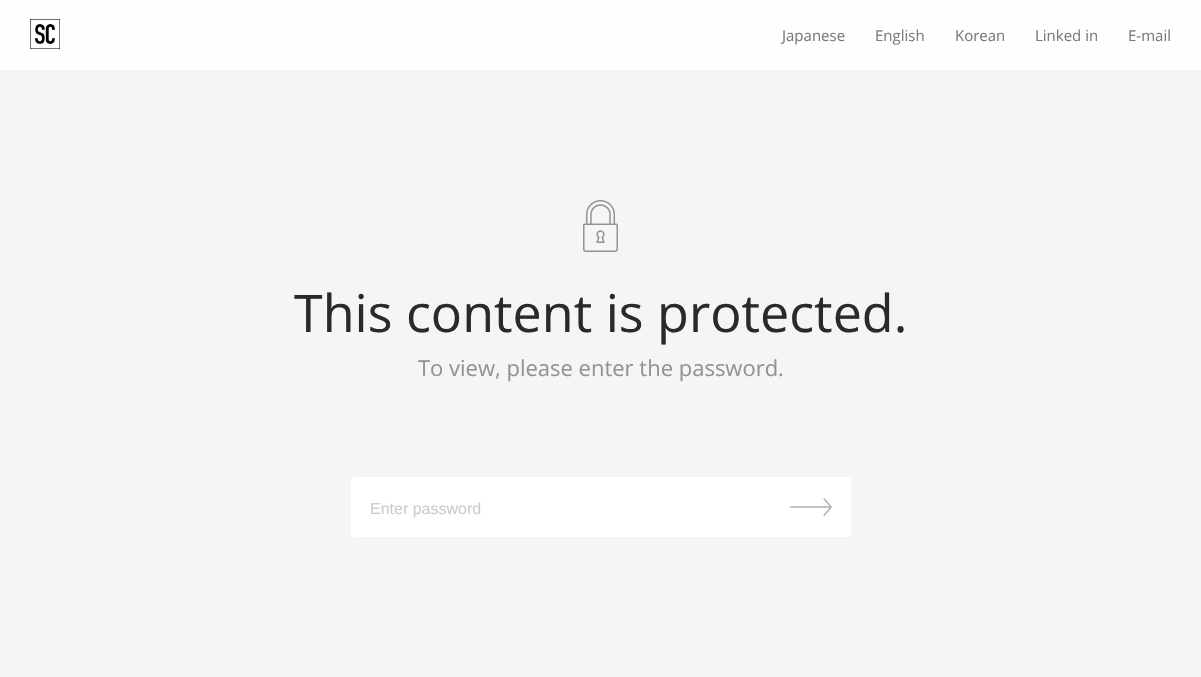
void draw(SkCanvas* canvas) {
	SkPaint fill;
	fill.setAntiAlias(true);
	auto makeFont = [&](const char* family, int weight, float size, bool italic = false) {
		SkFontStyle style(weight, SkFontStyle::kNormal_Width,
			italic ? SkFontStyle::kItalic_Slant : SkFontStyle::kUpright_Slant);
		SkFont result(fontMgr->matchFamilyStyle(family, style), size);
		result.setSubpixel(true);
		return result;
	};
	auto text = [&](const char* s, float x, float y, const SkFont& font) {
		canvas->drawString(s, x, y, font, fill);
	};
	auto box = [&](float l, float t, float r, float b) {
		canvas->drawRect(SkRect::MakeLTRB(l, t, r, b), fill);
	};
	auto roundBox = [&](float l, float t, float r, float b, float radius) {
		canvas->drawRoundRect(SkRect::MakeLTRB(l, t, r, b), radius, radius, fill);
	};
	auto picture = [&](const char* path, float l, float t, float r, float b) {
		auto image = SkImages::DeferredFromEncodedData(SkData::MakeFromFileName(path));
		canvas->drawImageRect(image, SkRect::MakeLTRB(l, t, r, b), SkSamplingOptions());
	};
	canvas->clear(0xFFF5F5F5);
	fill.setColor(0xFFFEFEFE);
	box(0, 0, 1201, 70);
	picture("image0.png", 30, 19, 60, 49);
	picture("image1.png", 583, 200, 618, 252);
	fill.setColor(0xFFFFFFFF);
	roundBox(351, 477, 851, 537, 2);
	picture("image2.png", 790, 498, 832, 516);
	auto font1 = makeFont("Open Sans", 400, 15);
	fill.setColor(0xFF7A7A7A);
	text("Japanese", 782, 41, font1);
	text("English", 875, 41, font1);
	text("Korean", 955, 41, font1);
	text("Linked in", 1035, 41, font1);
	text("E-mail", 1128, 41, font1);
	auto font2 = makeFont("Open Sans", 400, 52);
	fill.setColor(0xFF292A2C);
	text("This content is protected.", 294, 332, font2);
	auto font3 = makeFont("Open Sans", 400, 22);
	fill.setColor(0xFF939393);
	text("To view, please enter the password.", 418, 376, font3);
	auto font4 = makeFont("Liberation Sans", 400, 16);
	fill.setColor(0xFFCCCCCC);
	text("Enter password", 370, 514, font4);
}
